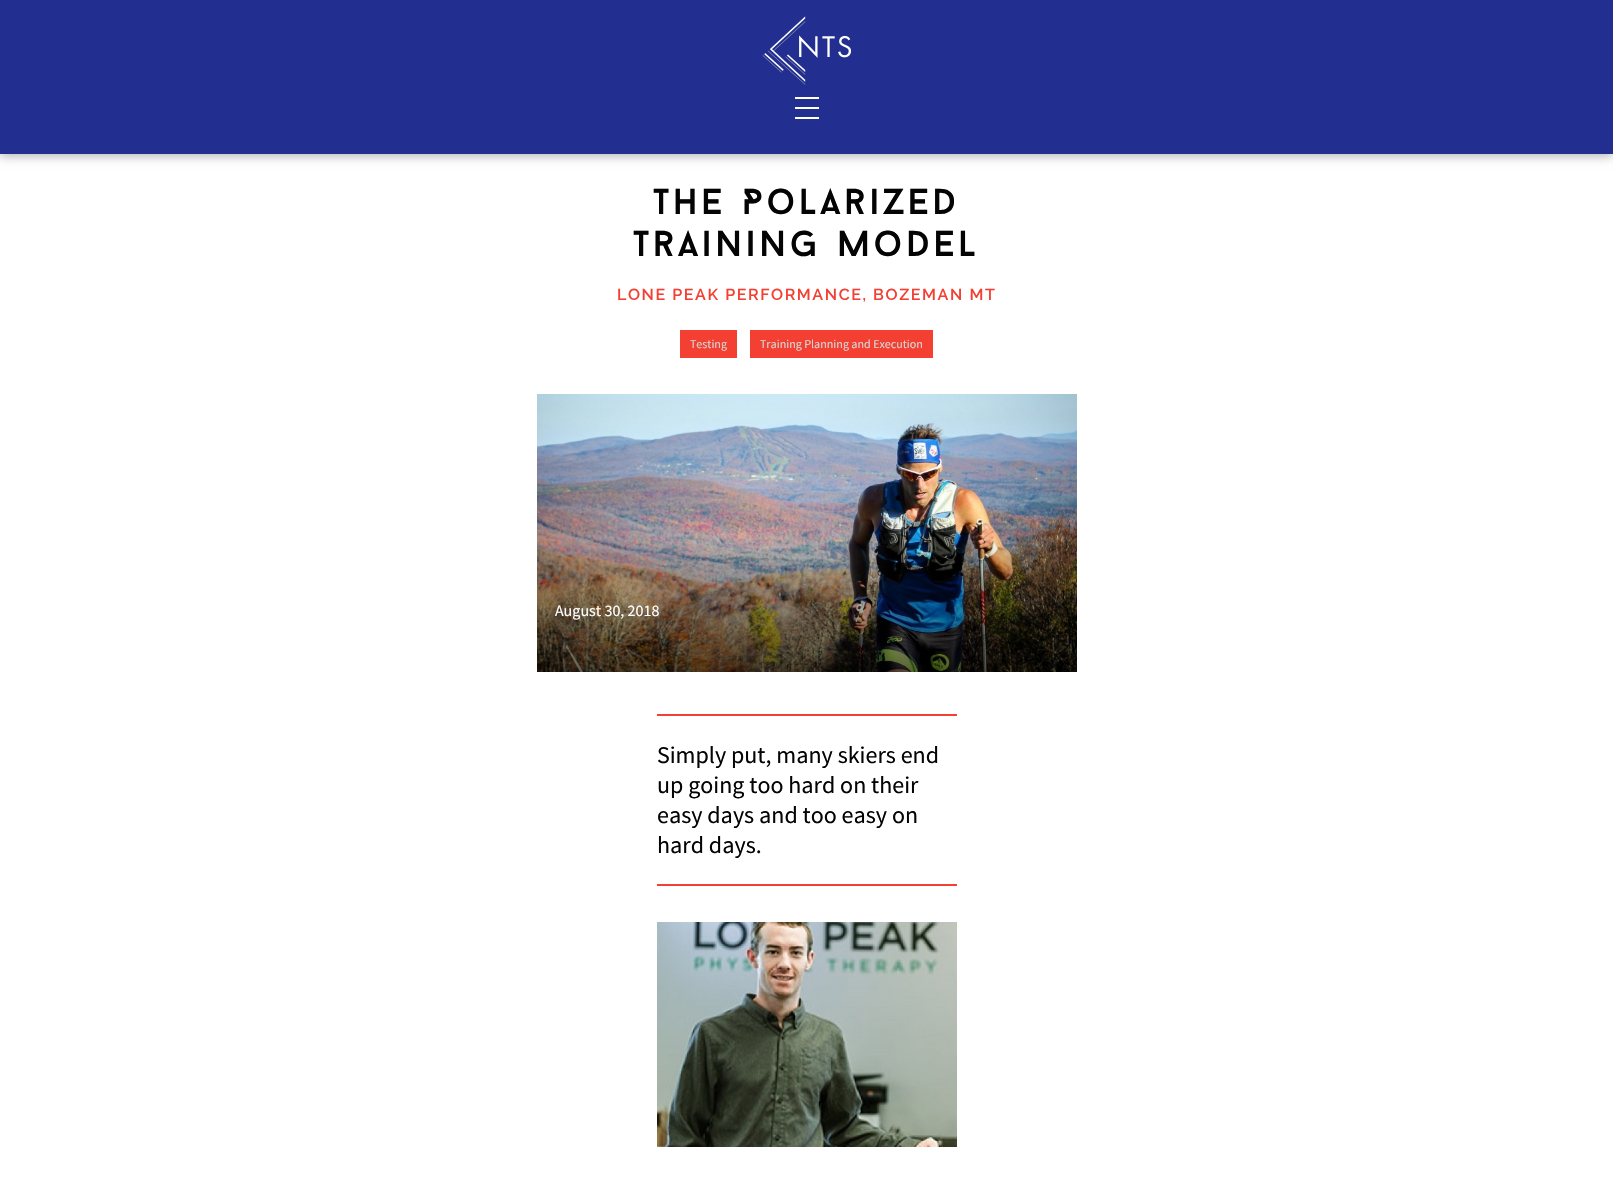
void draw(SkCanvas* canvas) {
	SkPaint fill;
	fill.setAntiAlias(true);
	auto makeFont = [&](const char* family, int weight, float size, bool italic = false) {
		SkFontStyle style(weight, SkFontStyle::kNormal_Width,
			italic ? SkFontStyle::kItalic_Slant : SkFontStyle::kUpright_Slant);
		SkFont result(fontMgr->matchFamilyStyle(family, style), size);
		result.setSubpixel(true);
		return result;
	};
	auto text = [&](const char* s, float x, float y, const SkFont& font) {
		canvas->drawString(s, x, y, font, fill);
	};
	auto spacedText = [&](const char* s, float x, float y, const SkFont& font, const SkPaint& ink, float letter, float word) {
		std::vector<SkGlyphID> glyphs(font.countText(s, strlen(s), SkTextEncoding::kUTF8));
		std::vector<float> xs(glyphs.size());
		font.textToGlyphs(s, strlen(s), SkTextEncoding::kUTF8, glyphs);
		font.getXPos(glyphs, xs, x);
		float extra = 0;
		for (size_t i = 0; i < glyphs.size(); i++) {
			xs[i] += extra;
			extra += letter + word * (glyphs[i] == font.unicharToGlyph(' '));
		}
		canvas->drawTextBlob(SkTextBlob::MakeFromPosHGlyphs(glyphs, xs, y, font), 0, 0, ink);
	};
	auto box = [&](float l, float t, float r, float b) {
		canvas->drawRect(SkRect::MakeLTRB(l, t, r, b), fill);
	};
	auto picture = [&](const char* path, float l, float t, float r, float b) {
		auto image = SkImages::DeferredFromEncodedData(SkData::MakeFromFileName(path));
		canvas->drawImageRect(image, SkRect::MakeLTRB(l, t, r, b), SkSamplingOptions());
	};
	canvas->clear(0xFFFFFFFF);
	fill.setColor(0x4D000000);
	fill.setMaskFilter(SkMaskFilter::MakeBlur(kNormal_SkBlurStyle, 5));
	canvas->drawRect(SkRect::MakeLTRB(0, 2, 1613, 156), fill);
	fill.setMaskFilter(nullptr);
	fill.setColor(0xFF232F90);
	box(0, 0, 1613, 154);
	picture("image0.png", 762, 16, 851, 85);
	fill.setColor(0xFFFFFFFF);
	box(795, 97, 819, 99);
	box(795, 107, 819, 109);
	box(795, 117, 819, 119);
	fill.setColor(0xFFF34033);
	box(680, 330, 737, 358);
	box(750, 330, 933, 358);
	picture("image1.png", 537, 394, 1077, 672);
	box(657, 714, 957, 716);
	box(657, 884, 957, 886);
	picture("image2.png", 657, 922, 957, 1147);
	auto font1 = makeFont("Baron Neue", 400, 36);
	fill.setColor(0xFF040404);
	spacedText("The Polarized", 653, 214, font1, fill, 3.6f, 0);
	spacedText("Training Model", 633, 256, font1, fill, 3.6f, 0);
	auto font2 = makeFont("Raleway", 600, 16);
	fill.setColor(0xFFF34033);
	spacedText("LONE PEAK PERFORMANCE, BOZEMAN MT", 617, 300, font2, fill, 1.6f, 0);
	auto font3 = makeFont("Source Sans Pro", 400, 12);
	fill.setColor(0xFFD9D6D3);
	text("Testing", 690, 348, font3);
	text("Training Planning and Execution", 760, 348, font3);
	auto font4 = makeFont("Source Sans Pro", 400, 16);
	fill.setColor(0xFFFFFFFF);
	text("August 30, 2018", 555, 616, font4);
	auto font5 = makeFont("Source Sans Pro", 400, 24);
	fill.setColor(0xFF040404);
	text("Simply put, many skiers end", 657, 763, font5);
	text("up going too hard on their", 657, 793, font5);
	text("easy days and too easy on", 657, 823, font5);
	text("hard days.", 657, 853, font5);
}
